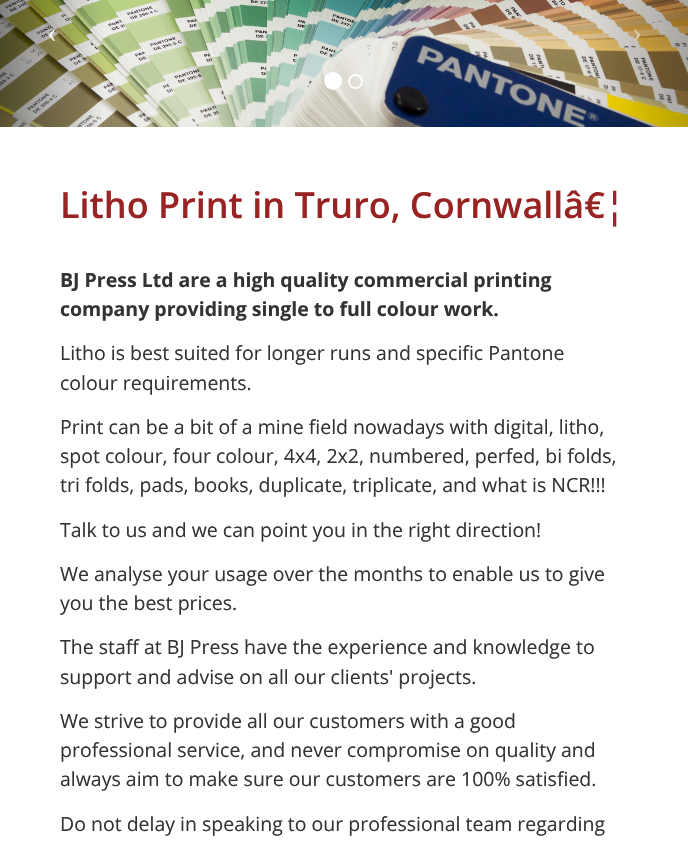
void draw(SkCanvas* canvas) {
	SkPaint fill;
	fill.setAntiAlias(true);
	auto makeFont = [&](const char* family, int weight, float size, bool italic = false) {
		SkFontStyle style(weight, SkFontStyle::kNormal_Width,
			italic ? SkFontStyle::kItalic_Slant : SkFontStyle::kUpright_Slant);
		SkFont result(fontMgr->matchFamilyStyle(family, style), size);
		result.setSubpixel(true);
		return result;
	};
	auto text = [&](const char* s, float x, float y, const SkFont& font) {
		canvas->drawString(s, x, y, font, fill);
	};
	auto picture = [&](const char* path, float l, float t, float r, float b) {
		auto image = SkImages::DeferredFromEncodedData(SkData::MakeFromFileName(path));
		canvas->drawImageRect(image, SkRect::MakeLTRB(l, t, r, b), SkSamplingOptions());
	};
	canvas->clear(0xFFFFFFFF);
	picture("image0.png", 0, 0, 688, 127);
	fill.setColor(0xFFFFFFFF);
	canvas->drawCircle(333, 81, 8, fill);
	fill.setStyle(SkPaint::kStroke_Style);
	fill.setStrokeWidth(2);
	canvas->drawCircle(333, 81, 8, fill);
	canvas->drawCircle(355.5f, 81.5f, 6.5f, fill);
	auto font1 = makeFont("Liberation Serif", 400, 30);
	fill.setStyle(SkPaint::kFill_Style);
	fill.setColor(0xFFF4F4F2);
	text("‹", 47, 42, font1);
	fill.setColor(0xFFDCCDB0);
	text("›", 632, 42, font1);
	auto font2 = makeFont("Open Sans", 600, 36);
	fill.setColor(0xFF992323);
	text("Litho Print in Truro, Cornwallâ€¦", 60, 218, font2);
	auto font3 = makeFont("Open Sans", 700, 19.5f);
	fill.setColor(0xFF333333);
	text("BJ Press Ltd are a high quality commercial printing", 60, 287, font3);
	text("company providing single to full colour work.", 60, 316, font3);
	auto font4 = makeFont("Open Sans", 400, 19.5f);
	text("Litho is best suited for longer runs and specific Pantone", 60, 360, font4);
	text("colour requirements.", 60, 390, font4);
	text("Print can be a bit of a mine field nowadays with digital, litho,", 60, 434, font4);
	text("spot colour, four colour, 4x4, 2x2, numbered, perfed, bi folds,", 60, 463, font4);
	text("tri folds, pads, books, duplicate, triplicate, and what is NCR!!!", 60, 492, font4);
	text("Talk to us and we can point you in the right direction!", 60, 537, font4);
	text("We analyse your usage over the months to enable us to give", 60, 581, font4);
	text("you the best prices.", 60, 610, font4);
	text("The staff at BJ Press have the experience and knowledge to", 60, 654, font4);
	text("support and advise on all our clients' projects.", 60, 684, font4);
	text("We strive to provide all our customers with a good", 60, 728, font4);
	text("professional service, and never compromise on quality and", 60, 757, font4);
	text("always aim to make sure our customers are 100% satisfied.", 60, 786, font4);
	text("Do not delay in speaking to our professional team regarding", 60, 831, font4);
}
